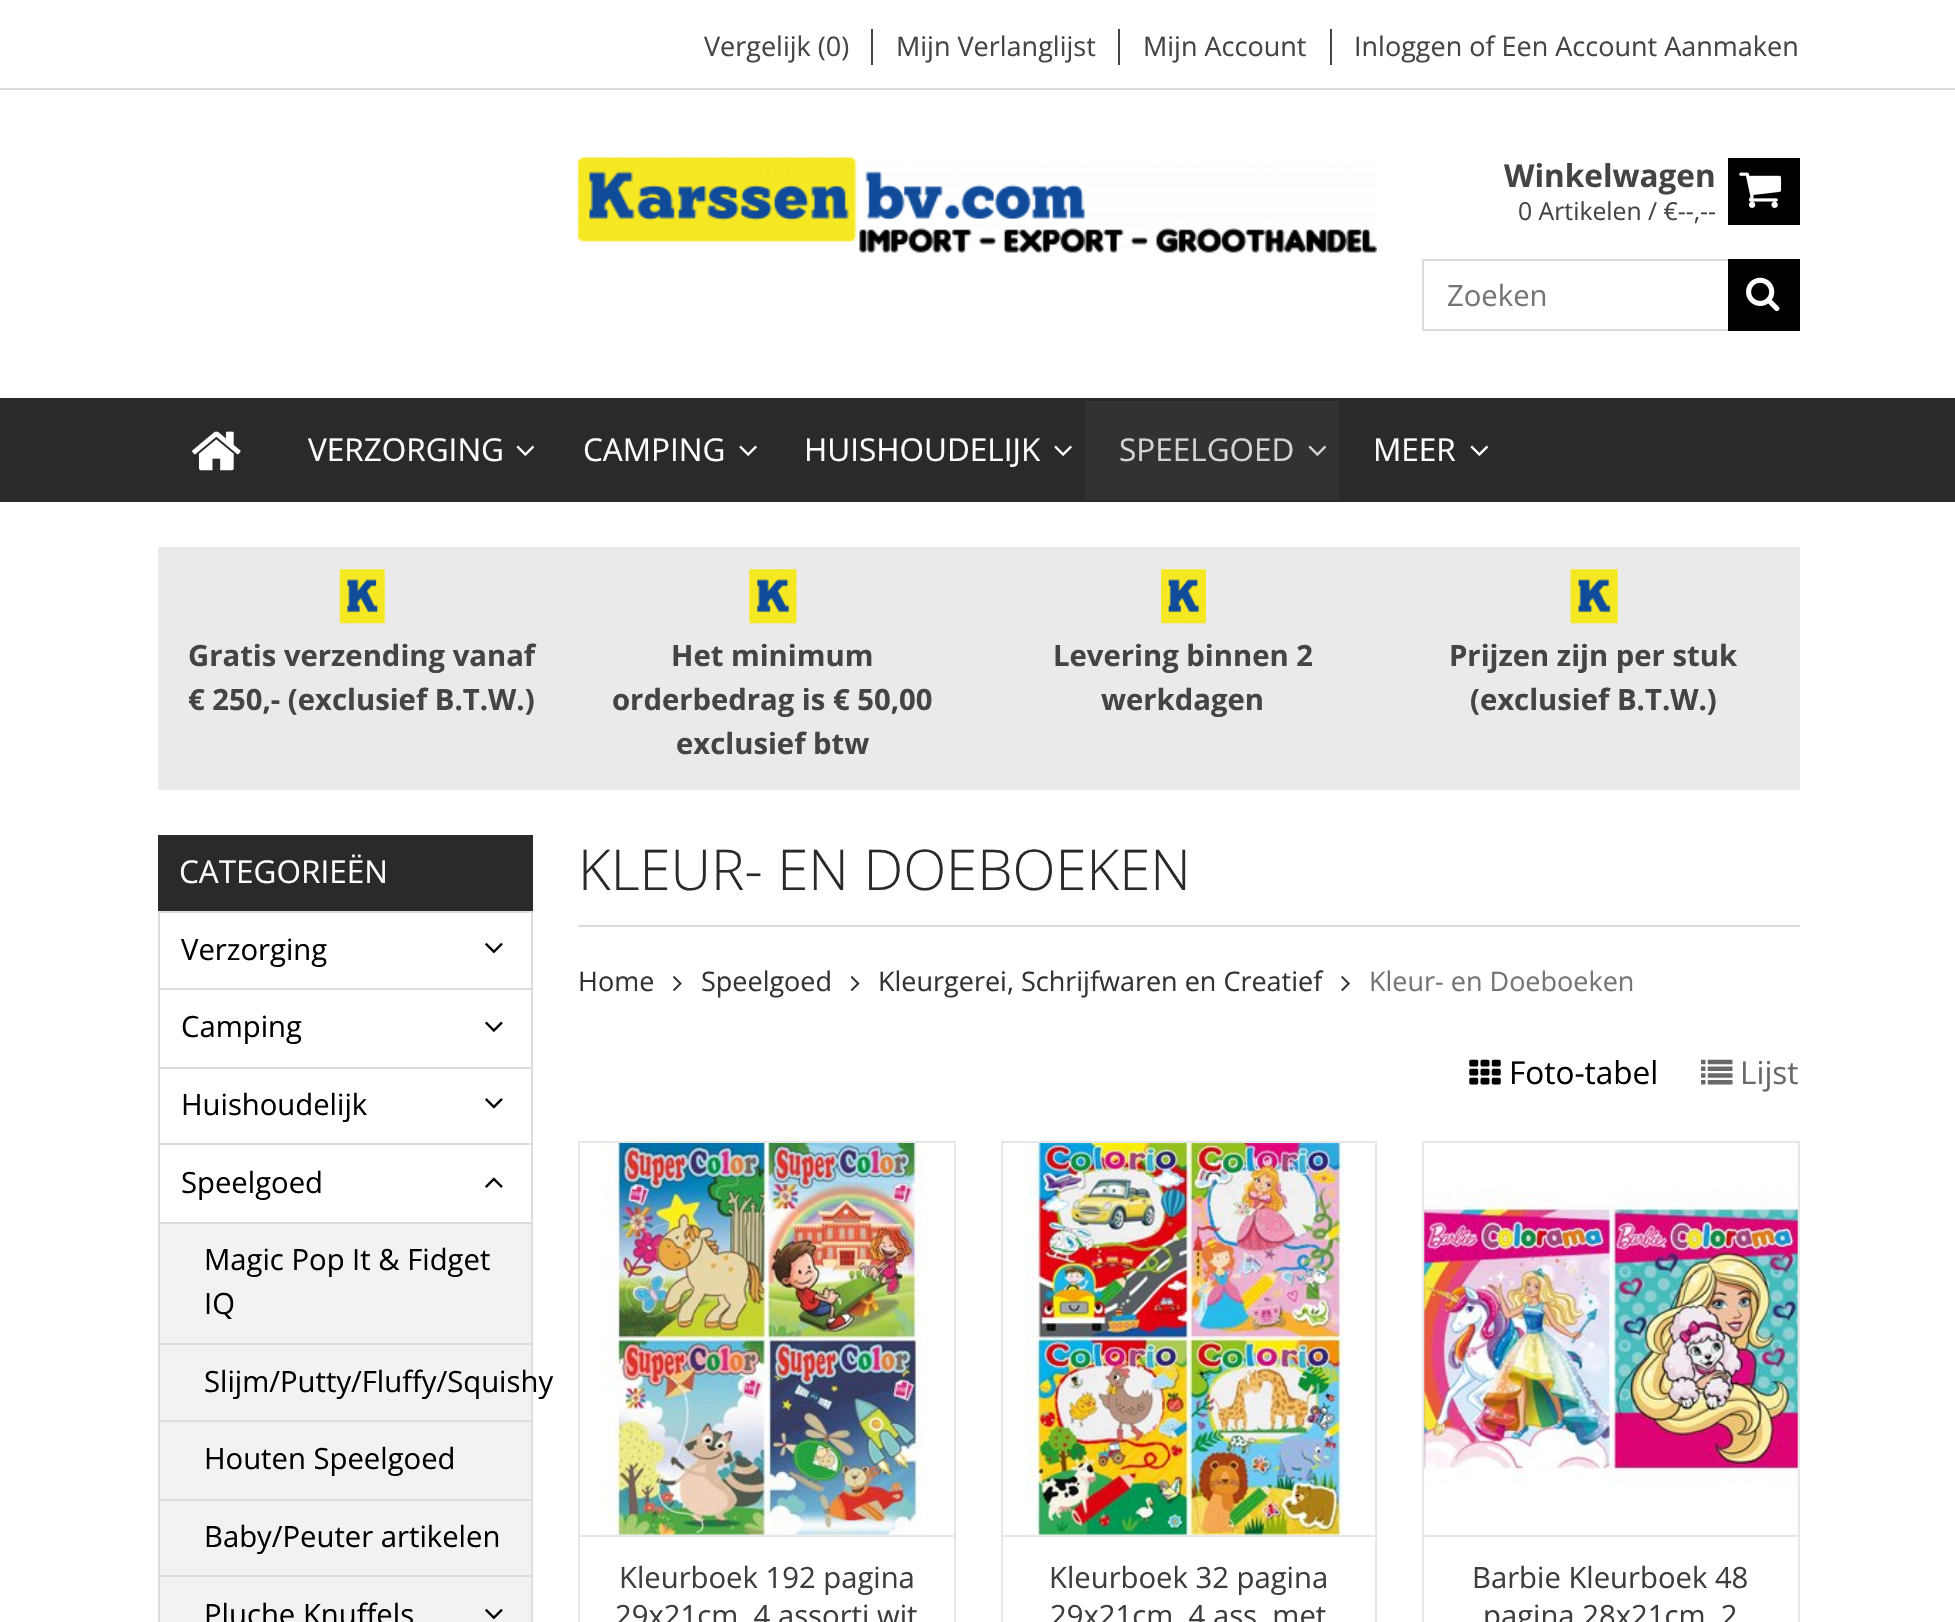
void draw(SkCanvas* canvas) {
	SkPaint fill;
	fill.setAntiAlias(true);
	auto makeFont = [&](const char* family, int weight, float size, bool italic = false) {
		SkFontStyle style(weight, SkFontStyle::kNormal_Width,
			italic ? SkFontStyle::kItalic_Slant : SkFontStyle::kUpright_Slant);
		SkFont result(fontMgr->matchFamilyStyle(family, style), size);
		result.setSubpixel(true);
		return result;
	};
	auto text = [&](const char* s, float x, float y, const SkFont& font) {
		canvas->drawString(s, x, y, font, fill);
	};
	auto box = [&](float l, float t, float r, float b) {
		canvas->drawRect(SkRect::MakeLTRB(l, t, r, b), fill);
	};
	auto picture = [&](const char* path, float l, float t, float r, float b) {
		auto image = SkImages::DeferredFromEncodedData(SkData::MakeFromFileName(path));
		canvas->drawImageRect(image, SkRect::MakeLTRB(l, t, r, b), SkSamplingOptions());
	};
	canvas->clear(0xFFFFFFFF);
	fill.setColor(0xFFDDDDDD);
	box(0, 88, 1955, 90);
	fill.setColor(0xFF444444);
	box(871, 29, 873, 65);
	box(1118, 29, 1120, 65);
	box(1330, 29, 1332, 65);
	picture("image0.png", 578, 157, 1377, 253);
	fill.setColor(0xFF000000);
	box(1728, 158, 1800, 225);
	picture("image1.png", 1739, 172, 1782, 208);
	fill.setStyle(SkPaint::kStroke_Style);
	fill.setStrokeWidth(2);
	fill.setColor(0xFFDDDDDD);
	canvas->drawRect(SkRect::MakeLTRB(1423, 260, 1799, 330), fill);
	fill.setStyle(SkPaint::kFill_Style);
	fill.setColor(0xFF000000);
	box(1728, 259, 1800, 331);
	picture("image2.png", 1746, 277, 1780, 312);
	fill.setColor(0xFF2A2A2A);
	box(0, 398, 1955, 502);
	picture("image3.png", 192, 431, 241, 471);
	picture("image4.png", 516, 445, 535, 456);
	picture("image5.png", 739, 445, 757, 456);
	picture("image5.png", 1054, 445, 1072, 456);
	fill.setColor(0xFF323232);
	box(1085, 401, 1339, 500);
	picture("image6.png", 1308, 445, 1327, 456);
	picture("image4.png", 1470, 445, 1489, 456);
	fill.setColor(0xFFEAEAEA);
	box(158, 547, 1800, 790);
	picture("image7.png", 339, 569, 385, 624);
	picture("image8.png", 749, 569, 797, 624);
	picture("image9.png", 1161, 569, 1206, 624);
	picture("image10.png", 1570, 569, 1618, 624);
	fill.setColor(0xFF2A2A2A);
	box(158, 835, 533, 911);
	fill.setStyle(SkPaint::kStroke_Style);
	fill.setColor(0xFFDDDDDD);
	canvas->drawRect(SkRect::MakeLTRB(159, 912, 532, 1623), fill);
	fill.setStyle(SkPaint::kFill_Style);
	box(160, 988, 531, 990);
	picture("image11.png", 485, 943, 503, 954);
	box(160, 1067, 531, 1069);
	picture("image12.png", 485, 1021, 503, 1032);
	box(160, 1143, 531, 1145);
	picture("image13.png", 485, 1098, 503, 1109);
	box(160, 1222, 531, 1224);
	picture("image14.png", 485, 1177, 503, 1188);
	fill.setColor(0xFFF2F2F2);
	box(160, 1224, 531, 1622);
	fill.setColor(0xFFDDDDDD);
	box(160, 1343, 531, 1345);
	box(160, 1420, 531, 1422);
	box(160, 1499, 531, 1501);
	box(160, 1575, 531, 1577);
	picture("image15.png", 485, 1609, 503, 1620);
	box(578, 925, 1800, 927);
	picture("image16.png", 673, 976, 682, 991);
	picture("image17.png", 850, 976, 860, 991);
	picture("image18.png", 1341, 976, 1350, 991);
	picture("image19.png", 1469, 1059, 1501, 1085);
	picture("image20.png", 1701, 1059, 1733, 1085);
	fill.setColor(0xFFE7E7E7);
	box(578, 1141, 956, 1143);
	box(954, 1141, 956, 1535);
	box(578, 1141, 580, 1535);
	fill.setColor(0xFFF7F7F7);
	box(581, 1534, 954, 1535);
	picture("image21.png", 581, 1143, 954, 1535);
	fill.setStyle(SkPaint::kStroke_Style);
	fill.setColor(0xFFE7E7E7);
	canvas->drawRect(SkRect::MakeLTRB(579, 1536, 955, 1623), fill);
	fill.setStyle(SkPaint::kFill_Style);
	box(1001, 1141, 1377, 1143);
	box(1375, 1141, 1377, 1535);
	box(1001, 1141, 1003, 1535);
	fill.setColor(0xFFF7F7F7);
	box(1004, 1143, 1375, 1535);
	picture("image22.png", 1004, 1143, 1375, 1535);
	fill.setStyle(SkPaint::kStroke_Style);
	fill.setColor(0xFFE7E7E7);
	canvas->drawRect(SkRect::MakeLTRB(1002, 1536, 1376, 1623), fill);
	fill.setStyle(SkPaint::kFill_Style);
	box(1422, 1141, 1800, 1143);
	box(1798, 1141, 1800, 1535);
	box(1422, 1141, 1424, 1535);
	fill.setColor(0xFFF7F7F7);
	box(1424, 1143, 1798, 1535);
	picture("image23.png", 1424, 1143, 1798, 1535);
	fill.setStyle(SkPaint::kStroke_Style);
	fill.setColor(0xFFE7E7E7);
	canvas->drawRect(SkRect::MakeLTRB(1423, 1536, 1799, 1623), fill);
	auto font1 = makeFont("Open Sans", 400, 27);
	fill.setStyle(SkPaint::kFill_Style);
	fill.setColor(0xFF444444);
	text("Vergelijk (0)", 704, 56, font1);
	text("Mijn Verlanglijst", 896, 56, font1);
	text("Mijn Account", 1143, 56, font1);
	text("Inloggen of Een Account Aanmaken", 1354, 56, font1);
	auto font2 = makeFont("Open Sans", 700, 31.5f);
	text("Winkelwagen", 1504, 187, font2);
	auto font3 = makeFont("Open Sans", 400, 24.75f);
	text("0 Artikelen / €--,--", 1518, 220, font3);
	auto font4 = makeFont("Open Sans", 400, 29.25f);
	fill.setColor(0xFF757575);
	text("Zoeken", 1447, 306, font4);
	auto font5 = makeFont("Open Sans", 400, 31.5f);
	fill.setColor(0xFFFFFFFF);
	text("VERZORGING", 308, 461, font5);
	text("CAMPING", 583, 461, font5);
	text("HUISHOUDELIJK", 804, 461, font5);
	fill.setColor(0xFFD4D4D4);
	text("SPEELGOED", 1119, 461, font5);
	fill.setColor(0xFFFFFFFF);
	text("MEER", 1373, 461, font5);
	auto font6 = makeFont("Open Sans", 700, 29.25f);
	fill.setColor(0xFF444444);
	text("Gratis verzending vanaf", 188, 666, font6);
	text("€ 250,- (exclusief B.T.W.)", 188, 710, font6);
	text("Het minimum", 671, 666, font6);
	text("orderbedrag is € 50,00", 612, 710, font6);
	text("exclusief btw", 676, 754, font6);
	text("Levering binnen 2", 1053, 666, font6);
	text("werkdagen", 1101, 710, font6);
	text("Prijzen zijn per stuk", 1449, 666, font6);
	text("(exclusief B.T.W.)", 1470, 710, font6);
	fill.setColor(0xFFFFFFFF);
	text("CATEGORIEËN", 179, 883, font5);
	fill.setColor(0xFF000000);
	text("Verzorging", 181, 960, font4);
	text("Camping", 181, 1037, font4);
	text("Huishoudelijk", 181, 1115, font4);
	text("Speelgoed", 181, 1193, font4);
	text("Magic Pop It & Fidget", 204, 1270, font4);
	text("IQ", 204, 1314, font4);
	text("Slijm/Putty/Fluffy/Squishy", 204, 1392, font4);
	text("Houten Speelgoed", 204, 1469, font4);
	text("Baby/Peuter artikelen", 204, 1547, font4);
	text("Pluche Knuffels", 204, 1625, font4);
	auto font7 = makeFont("Open Sans", 300, 56.25f);
	fill.setColor(0xFF2A2A2A);
	text("KLEUR- EN DOEBOEKEN", 578, 890, font7);
	fill.setColor(0xFF333333);
	text("Home", 578, 991, font1);
	text("Speelgoed", 701, 991, font1);
	text("Kleurgerei, Schrijfwaren en Creatief", 878, 991, font1);
	fill.setColor(0xFF757575);
	text("Kleur- en Doeboeken", 1369, 991, font1);
	fill.setColor(0xFF000000);
	text("Foto-tabel", 1509, 1084, font5);
	fill.setColor(0xFF696969);
	text("Lijst", 1740, 1084, font5);
	fill.setColor(0xFF3D3D3D);
	text("Kleurboek 192 pagina", 619, 1588, font4);
	text("29x21cm. 4 assorti wit", 615, 1626, font4);
	text("Kleurboek 32 pagina", 1049, 1588, font4);
	text("29x21cm. 4 ass. met", 1050, 1626, font4);
	text("Barbie Kleurboek 48", 1472, 1588, font4);
	text("pagina 28x21cm. 2", 1483, 1626, font4);
}
